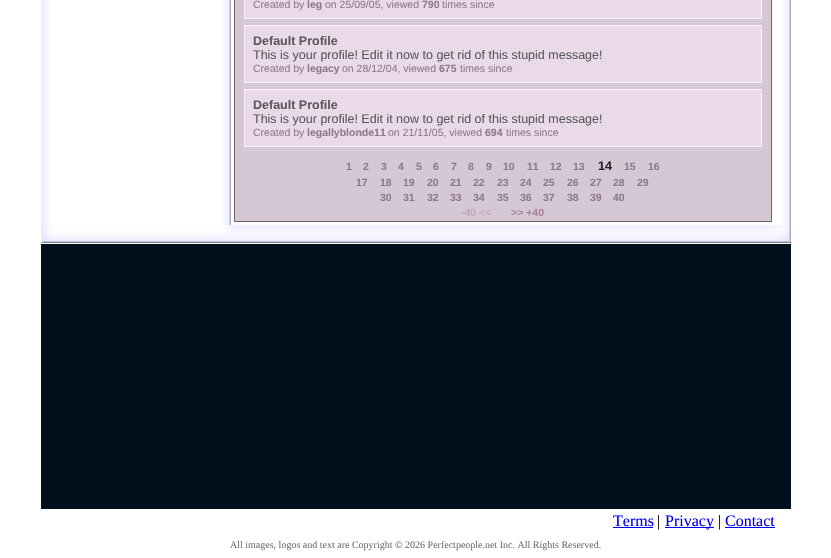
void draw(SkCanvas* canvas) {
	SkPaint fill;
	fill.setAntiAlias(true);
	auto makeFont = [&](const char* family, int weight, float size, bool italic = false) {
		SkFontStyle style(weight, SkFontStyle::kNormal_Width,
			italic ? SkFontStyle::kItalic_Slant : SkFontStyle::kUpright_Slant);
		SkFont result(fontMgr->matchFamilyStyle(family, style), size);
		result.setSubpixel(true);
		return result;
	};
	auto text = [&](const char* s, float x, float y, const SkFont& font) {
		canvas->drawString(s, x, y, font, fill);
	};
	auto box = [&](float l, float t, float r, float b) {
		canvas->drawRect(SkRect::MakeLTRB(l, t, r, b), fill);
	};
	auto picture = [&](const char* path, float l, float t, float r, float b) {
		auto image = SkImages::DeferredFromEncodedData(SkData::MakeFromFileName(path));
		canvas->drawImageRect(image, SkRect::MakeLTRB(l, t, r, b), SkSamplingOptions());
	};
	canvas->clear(0xFFFFFFFF);
	picture("image0.png", 41, 0, 50, 225);
	picture("image1.png", 222, 0, 231, 225);
	fill.setColor(0xFF6B646B);
	box(234, 0, 235, 222);
	fill.setColor(0xFFD6C7D5);
	box(235, 0, 771, 221);
	fill.setColor(0xFFFFEDFF);
	box(244, 0, 762, 19);
	fill.setColor(0xFFE9D9E9);
	box(245, 0, 761, 18);
	fill.setColor(0xFFFFEDFF);
	box(244, 25, 762, 83);
	fill.setColor(0xFFE9D9E9);
	box(245, 26, 761, 82);
	fill.setColor(0xFFFFEDFF);
	box(244, 89, 762, 147);
	fill.setColor(0xFFE9D9E9);
	box(245, 90, 761, 146);
	fill.setColor(0xFF6B646B);
	box(771, 0, 772, 222);
	box(235, 221, 771, 222);
	picture("image1.png", 782, 0, 791, 225);
	picture("image2.png", 41, 225, 231, 243);
	picture("image3.png", 231, 225, 775, 243);
	picture("image4.png", 775, 225, 791, 243);
	fill.setColor(0xFF00111D);
	box(41, 244, 791, 509);
	fill.setColor(0xFF0000EE);
	box(613, 527, 653, 528);
	box(665, 527, 714, 528);
	box(725, 527, 775, 528);
	auto font1 = makeFont("Liberation Sans", 400, 10.5f);
	fill.setColor(0xFF8D7B8D);
	text("Created by", 253, 8, font1);
	auto font2 = makeFont("Liberation Sans", 700, 10.5f);
	text("leg", 307, 8, font2);
	text("on 25/09/05, viewed", 325, 8, font1);
	text("790", 422, 8, font2);
	text("times since", 442, 8, font1);
	auto font3 = makeFont("Liberation Sans", 700, 12.5f);
	fill.setColor(0xFF5B5B5B);
	text("Default Profile", 253, 45, font3);
	auto font4 = makeFont("Liberation Sans", 400, 12.5f);
	text("This is your profile! Edit it now to get rid of this stupid message!", 253, 59, font4);
	fill.setColor(0xFF8D7B8D);
	text("Created by", 253, 72, font1);
	text("legacy", 307, 72, font2);
	text("on 28/12/04, viewed", 342, 72, font1);
	text("675", 439, 72, font2);
	text("times since", 460, 72, font1);
	fill.setColor(0xFF5B5B5B);
	text("Default Profile", 253, 109, font3);
	text("This is your profile! Edit it now to get rid of this stupid message!", 253, 123, font4);
	fill.setColor(0xFF8D7B8D);
	text("Created by", 253, 136, font1);
	text("legallyblonde11", 307, 136, font2);
	text("on 21/11/05, viewed", 388, 136, font1);
	text("694", 485, 136, font2);
	text("times since", 506, 136, font1);
	text("1", 346, 170, font2);
	text("2", 363, 170, font2);
	text("3", 381, 170, font2);
	text("4", 398, 170, font2);
	text("5", 416, 170, font2);
	text("6", 433, 170, font2);
	text("7", 451, 170, font2);
	text("8", 468, 170, font2);
	text("9", 486, 170, font2);
	text("10", 503, 170, font2);
	text("11", 527, 170, font2);
	text("12", 550, 170, font2);
	text("13", 573, 170, font2);
	fill.setColor(0xFF282228);
	text("14", 598, 170, font3);
	fill.setColor(0xFF8D7B8D);
	text("15", 624, 170, font2);
	text("16", 648, 170, font2);
	text("17", 356, 186, font2);
	text("18", 380, 186, font2);
	text("19", 403, 186, font2);
	text("20", 427, 186, font2);
	text("21", 450, 186, font2);
	text("22", 473, 186, font2);
	text("23", 497, 186, font2);
	text("24", 520, 186, font2);
	text("25", 543, 186, font2);
	text("26", 567, 186, font2);
	text("27", 590, 186, font2);
	text("28", 613, 186, font2);
	text("29", 637, 186, font2);
	text("30", 380, 201, font2);
	text("31", 403, 201, font2);
	text("32", 427, 201, font2);
	text("33", 450, 201, font2);
	text("34", 473, 201, font2);
	text("35", 497, 201, font2);
	text("36", 520, 201, font2);
	text("37", 543, 201, font2);
	text("38", 567, 201, font2);
	text("39", 590, 201, font2);
	text("40", 613, 201, font2);
	fill.setColor(0xFFC2A7B9);
	text("-40 <<", 461, 216, font2);
	fill.setColor(0xFFA9819B);
	text(">> +40", 511, 216, font2);
	auto font5 = makeFont("Liberation Serif", 400, 16);
	fill.setColor(0xFF0000EE);
	text("Terms", 613, 526, font5);
	fill.setColor(0xFF000000);
	text("|", 657, 526, font5);
	fill.setColor(0xFF0000EE);
	text("Privacy", 665, 526, font5);
	fill.setColor(0xFF000000);
	text("|", 718, 526, font5);
	fill.setColor(0xFF0000EE);
	text("Contact", 725, 526, font5);
	auto font6 = makeFont("Liberation Serif", 400, 10);
	fill.setColor(0xFF707070);
	text("All images, logos and text are Copyright © 2026 Perfectpeople.net Inc. All Rights Reserved.", 230, 548, font6);
}
